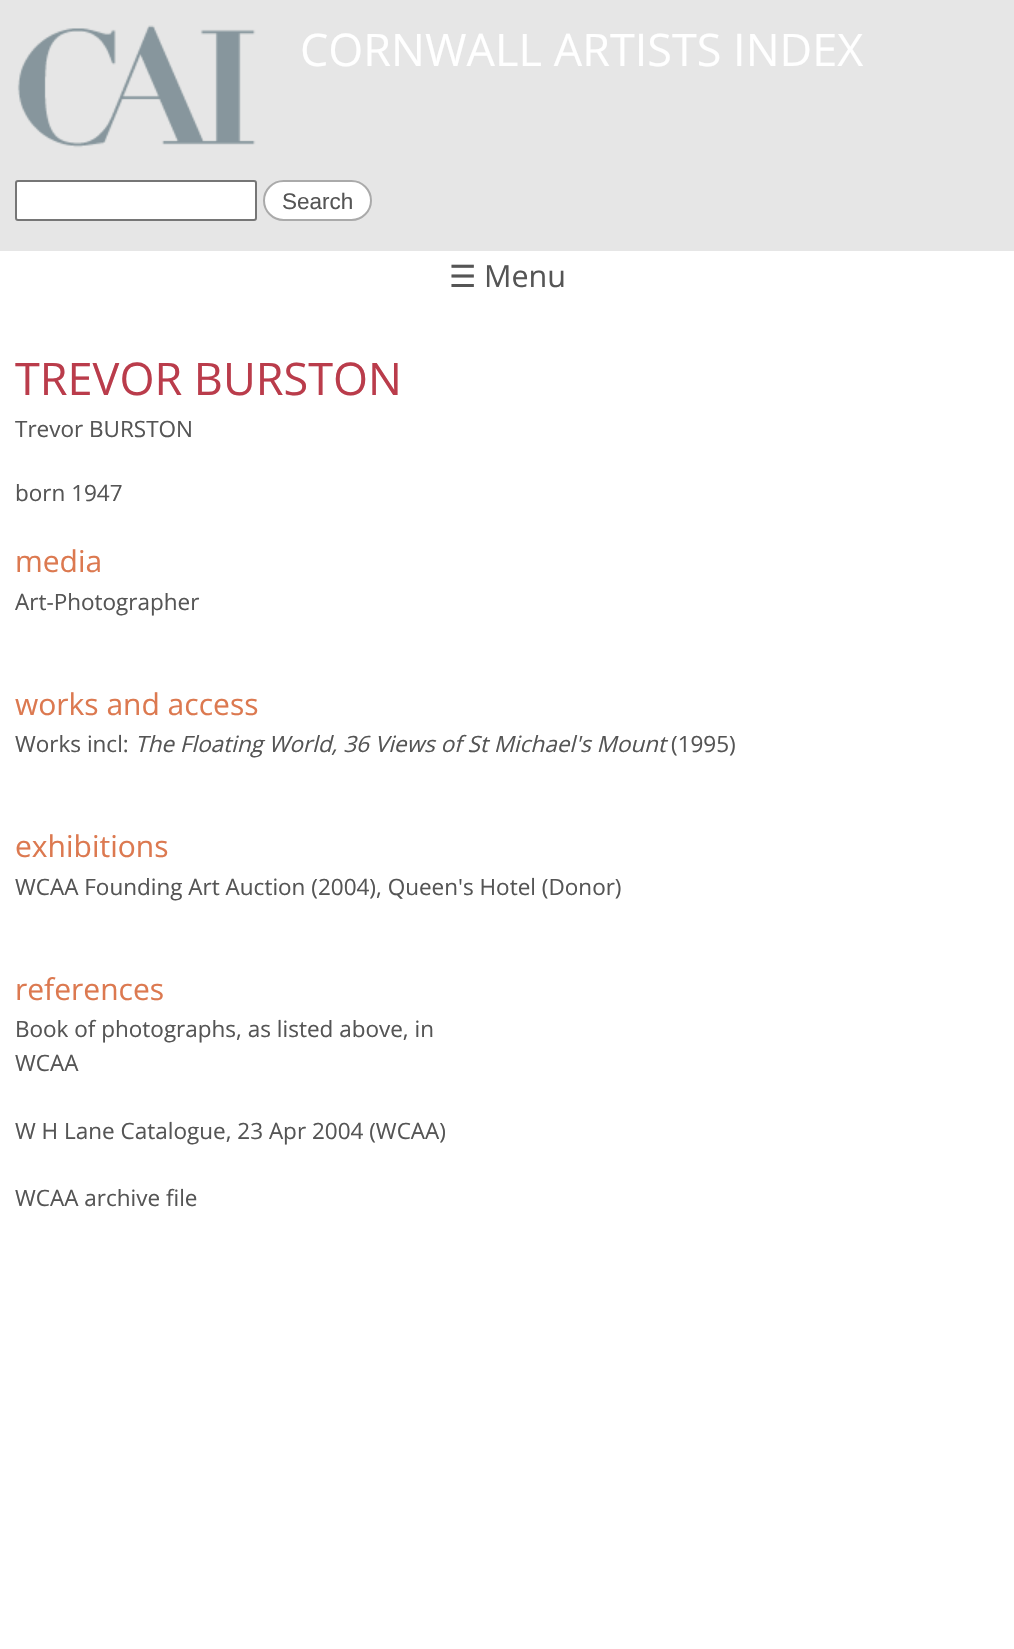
void draw(SkCanvas* canvas) {
	SkPaint fill;
	fill.setAntiAlias(true);
	auto makeFont = [&](const char* family, int weight, float size, bool italic = false) {
		SkFontStyle style(weight, SkFontStyle::kNormal_Width,
			italic ? SkFontStyle::kItalic_Slant : SkFontStyle::kUpright_Slant);
		SkFont result(fontMgr->matchFamilyStyle(family, style), size);
		result.setSubpixel(true);
		return result;
	};
	auto text = [&](const char* s, float x, float y, const SkFont& font) {
		canvas->drawString(s, x, y, font, fill);
	};
	auto box = [&](float l, float t, float r, float b) {
		canvas->drawRect(SkRect::MakeLTRB(l, t, r, b), fill);
	};
	auto picture = [&](const char* path, float l, float t, float r, float b) {
		auto image = SkImages::DeferredFromEncodedData(SkData::MakeFromFileName(path));
		canvas->drawImageRect(image, SkRect::MakeLTRB(l, t, r, b), SkSamplingOptions());
	};
	canvas->clear(0xFFFFFFFF);
	fill.setColor(0xFFE6E6E6);
	box(0, 0, 1014, 251);
	picture("image0.png", 17, 25, 256, 148);
	fill.setColor(0xFFFFFFFF);
	canvas->drawRoundRect(SkRect::MakeLTRB(16, 181, 256, 220), 2, 2, fill);
	fill.setStyle(SkPaint::kStroke_Style);
	fill.setStrokeWidth(2);
	fill.setColor(0xFF767676);
	canvas->drawRoundRect(SkRect::MakeLTRB(16, 181, 256, 220), 2, 2, fill);
	fill.setStyle(SkPaint::kFill_Style);
	fill.setColor(0xFFFFFFFF);
	canvas->drawRoundRect(SkRect::MakeLTRB(264, 181, 371, 220), 19.5f, 19.5f, fill);
	fill.setStyle(SkPaint::kStroke_Style);
	fill.setColor(0xFFAAAAAA);
	canvas->drawRoundRect(SkRect::MakeLTRB(264, 181, 371, 220), 19.5f, 19.5f, fill);
	auto font1 = makeFont("Open Sans", 400, 45);
	fill.setStyle(SkPaint::kFill_Style);
	fill.setColor(0xFFFFFFFF);
	text("CORNWALL ARTISTS INDEX", 300, 66, font1);
	auto font2 = makeFont("Liberation Sans", 400, 22.5f);
	fill.setColor(0xFF555555);
	text("Search", 282, 209, font2);
	auto font3 = makeFont("DejaVu Sans", 400, 30.5f);
	text("☰", 449, 287, font3);
	auto font4 = makeFont("Open Sans", 400, 30.5f);
	text("Menu", 484, 287, font4);
	fill.setColor(0xFFBA3C4B);
	text("TREVOR BURSTON", 15, 395, font1);
	auto font5 = makeFont("Open Sans", 400, 22.5f);
	fill.setColor(0xFF555555);
	text("Trevor BURSTON", 15, 437, font5);
	text("born 1947", 15, 501, font5);
	auto font6 = makeFont("Open Sans", 400, 30);
	fill.setColor(0xFFDC7950);
	text("media", 15, 572, font6);
	fill.setColor(0xFF555555);
	text("Art-Photographer", 15, 610, font5);
	fill.setColor(0xFFDC7950);
	text("works and access", 15, 715, font6);
	fill.setColor(0xFF555555);
	text("Works incl:", 15, 752, font5);
	auto font7 = makeFont("Open Sans", 400, 22.5f, true);
	text("The Floating World, 36 Views of St Michael's Mount", 135, 752, font7);
	text("(1995)", 671, 752, font5);
	fill.setColor(0xFFDC7950);
	text("exhibitions", 15, 857, font6);
	fill.setColor(0xFF555555);
	text("WCAA Founding Art Auction (2004), Queen's Hotel (Donor)", 15, 895, font5);
	fill.setColor(0xFFDC7950);
	text("references", 15, 1000, font6);
	fill.setColor(0xFF555555);
	text("Book of photographs, as listed above, in", 15, 1037, font5);
	text("WCAA", 15, 1071, font5);
	text("W H Lane Catalogue, 23 Apr 2004 (WCAA)", 15, 1139, font5);
	text("WCAA archive file", 15, 1206, font5);
}
